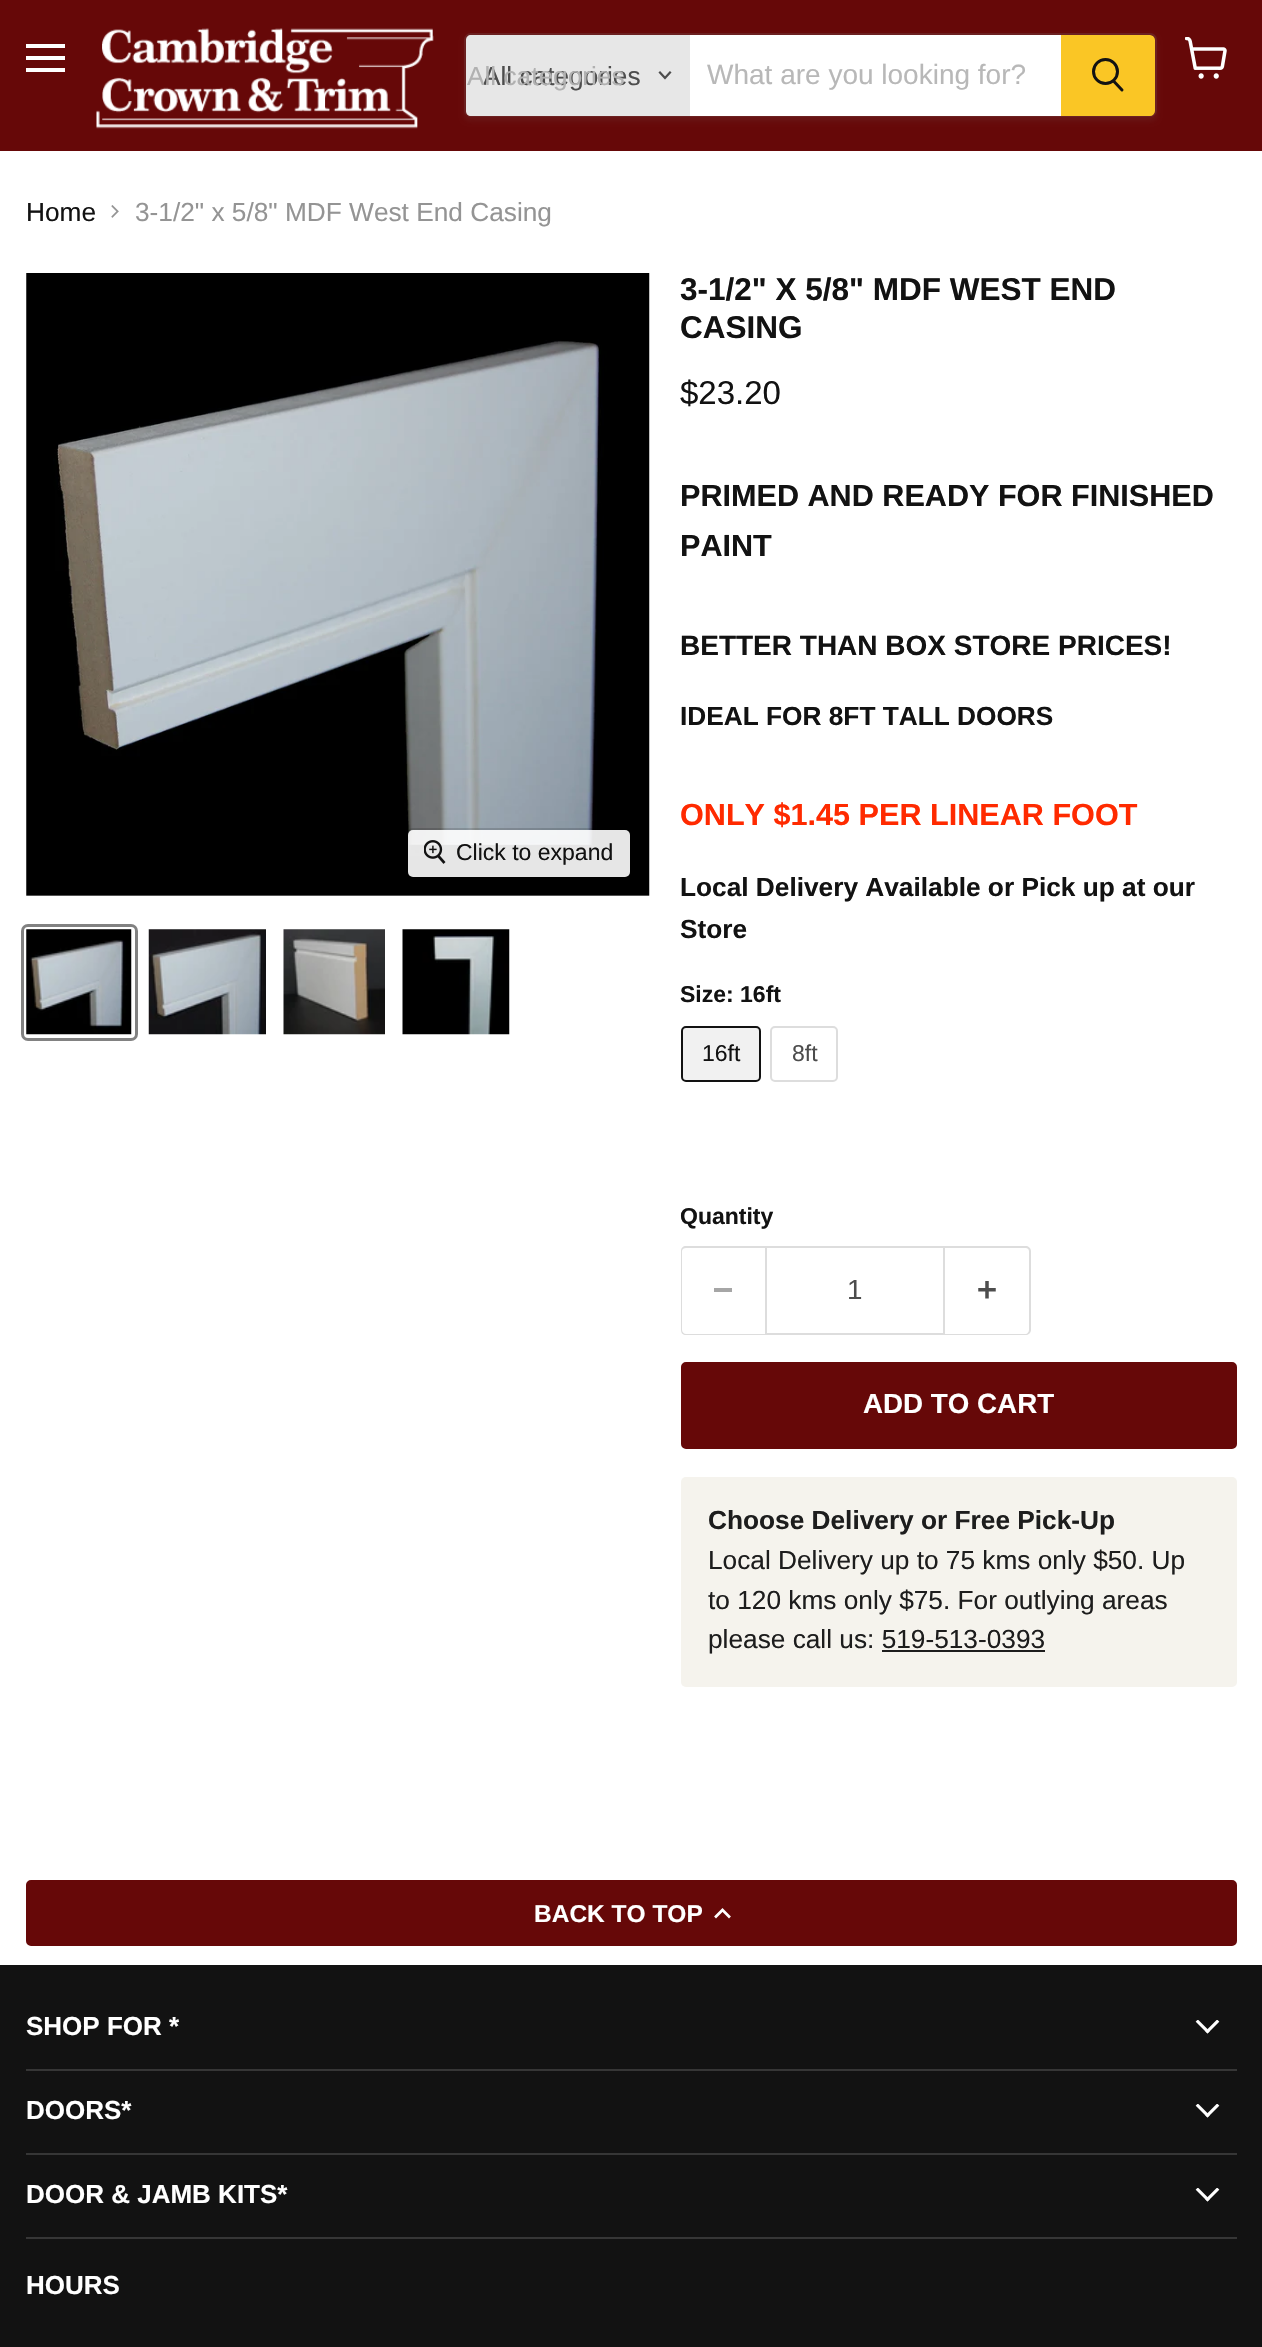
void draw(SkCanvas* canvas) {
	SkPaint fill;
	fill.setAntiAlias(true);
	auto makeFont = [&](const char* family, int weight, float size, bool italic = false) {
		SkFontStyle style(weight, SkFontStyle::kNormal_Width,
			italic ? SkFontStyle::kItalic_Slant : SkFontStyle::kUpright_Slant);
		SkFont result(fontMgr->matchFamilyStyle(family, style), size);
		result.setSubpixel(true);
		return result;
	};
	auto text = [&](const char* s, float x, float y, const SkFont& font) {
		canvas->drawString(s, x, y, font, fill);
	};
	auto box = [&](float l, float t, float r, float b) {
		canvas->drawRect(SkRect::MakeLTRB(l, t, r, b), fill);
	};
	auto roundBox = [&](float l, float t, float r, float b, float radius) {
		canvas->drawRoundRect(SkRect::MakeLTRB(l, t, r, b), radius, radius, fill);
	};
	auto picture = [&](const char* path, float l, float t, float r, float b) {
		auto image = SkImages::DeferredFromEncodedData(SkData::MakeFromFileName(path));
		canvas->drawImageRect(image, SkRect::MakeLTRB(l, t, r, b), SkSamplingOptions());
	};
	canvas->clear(0xFFFFFFFF);
	fill.setColor(0xFF660808);
	box(0, 0, 1262, 151);
	fill.setColor(0xFFFFFFFF);
	box(26, 44, 65, 48);
	box(26, 56, 65, 60);
	box(26, 68, 65, 72);
	picture("image0.png", 1185, 37, 1227, 79);
	picture("image1.png", 96, 28, 434, 129);
	canvas->save();
	canvas->clipPath(SkPathBuilder(SkPathFillType::kEvenOdd).moveTo(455, 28).lineTo(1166, 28).lineTo(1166, 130).lineTo(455, 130).close().moveTo(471, 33).lineTo(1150, 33).cubicTo(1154, 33, 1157, 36, 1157, 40).lineTo(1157, 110).cubicTo(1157, 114, 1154, 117, 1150, 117).lineTo(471, 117).cubicTo(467, 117, 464, 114, 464, 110).lineTo(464, 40).cubicTo(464, 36, 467, 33, 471, 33).close().detach(), true);
	fill.setColor(0x1C808080);
	fill.setMaskFilter(SkMaskFilter::MakeBlur(kNormal_SkBlurStyle, 2.5f));
	canvas->drawRoundRect(SkRect::MakeLTRB(464, 37, 1157, 121), 7, 7, fill);
	fill.setMaskFilter(nullptr);
	canvas->restore();
	fill.setStyle(SkPaint::kStroke_Style);
	fill.setStrokeWidth(2);
	fill.setColor(0x33808080);
	canvas->drawRoundRect(SkRect::MakeLTRB(465, 34, 1156, 116), 6, 6, fill);
	fill.setStyle(SkPaint::kFill_Style);
	fill.setColor(0xFFE7E7E7);
	canvas->drawPath(SkPathBuilder().moveTo(471, 35).lineTo(690, 35).lineTo(690, 116).lineTo(471, 116).cubicTo(468, 116, 466, 114, 466, 111).lineTo(466, 40).cubicTo(466, 37, 468, 35, 471, 35).close().detach(), fill);
	fill.setStyle(SkPaint::kStroke_Style);
	fill.setStrokeWidth(2.2f);
	fill.setStrokeCap(SkPaint::kSquare_Cap);
	fill.setColor(0xFF4D4D4D);
	canvas->drawPath(SkPathBuilder().moveTo(665, 78).lineTo(670, 72.5f).moveTo(665, 78).lineTo(660, 72.5f).detach(), fill);
	fill.setStyle(SkPaint::kFill_Style);
	fill.setColor(0xFFFFFFFF);
	box(690, 35, 1061, 116);
	fill.setColor(0xFFFAC625);
	canvas->drawPath(SkPathBuilder().moveTo(1062, 36).lineTo(1150, 36).cubicTo(1152, 36, 1154, 38, 1154, 40).lineTo(1154, 111).cubicTo(1154, 113, 1152, 115, 1150, 115).lineTo(1062, 115).close().detach(), fill);
	fill.setStyle(SkPaint::kStroke_Style);
	fill.setStrokeWidth(2);
	fill.setStrokeCap(SkPaint::kButt_Cap);
	canvas->drawPath(SkPathBuilder().moveTo(1062, 36).lineTo(1150, 36).cubicTo(1152, 36, 1154, 38, 1154, 40).lineTo(1154, 111).cubicTo(1154, 113, 1152, 115, 1150, 115).lineTo(1062, 115).close().detach(), fill);
	fill.setStrokeWidth(3);
	fill.setStrokeCap(SkPaint::kRound_Cap);
	fill.setColor(0xFF121212);
	canvas->drawPath(SkPathBuilder().moveTo(1122, 90).lineTo(1114, 81.5f).detach(), fill);
	fill.setStrokeCap(SkPaint::kButt_Cap);
	canvas->drawCircle(1105.5f, 71.5f, 12, fill);
	picture("image2.png", 111, 205, 119, 218);
	picture("image3.png", 26, 273, 650, 896);
	fill.setStrokeWidth(2);
	fill.setColor(0x26000000);
	canvas->drawRoundRect(SkRect::MakeLTRB(407, 829, 631, 878), 6, 6, fill);
	fill.setStyle(SkPaint::kFill_Style);
	fill.setColor(0xE6FFFFFF);
	roundBox(408, 830, 630, 877, 5);
	picture("image4.png", 424, 840, 446, 864);
	fill.setStyle(SkPaint::kStroke_Style);
	fill.setStrokeWidth(3);
	fill.setColor(0xFF818181);
	canvas->drawRoundRect(SkRect::MakeLTRB(22.5f, 925.5f, 136.5f, 1039.5f), 5.5f, 5.5f, fill);
	picture("image5.png", 26, 929, 132, 1035);
	picture("image6.png", 148, 929, 266, 1035);
	picture("image7.png", 283, 929, 385, 1035);
	picture("image8.png", 402, 929, 510, 1035);
	fill.setStyle(SkPaint::kFill_Style);
	fill.setColor(0xFFF1F1F1);
	canvas->drawRoundRect(SkRect::MakeLTRB(682, 1027, 760, 1081), 4, 4, fill);
	fill.setStyle(SkPaint::kStroke_Style);
	fill.setStrokeWidth(2);
	fill.setColor(0xFF121212);
	canvas->drawRoundRect(SkRect::MakeLTRB(682, 1027, 760, 1081), 4, 4, fill);
	fill.setColor(0xFFDDDDDD);
	canvas->drawRoundRect(SkRect::MakeLTRB(771, 1027, 837, 1081), 4, 4, fill);
	fill.setStyle(SkPaint::kFill_Style);
	canvas->drawPath(SkPathBuilder(SkPathFillType::kEvenOdd).moveTo(686, 1246).lineTo(765, 1246).lineTo(765, 1335).lineTo(686, 1335).cubicTo(683, 1335, 681, 1333, 681, 1330).lineTo(681, 1251).cubicTo(681, 1248, 683, 1246, 686, 1246).close().moveTo(686, 1248).lineTo(765, 1248).lineTo(765, 1334).lineTo(686, 1334).cubicTo(684, 1334, 682, 1332, 682, 1330).lineTo(682, 1251).cubicTo(682, 1249, 684, 1248, 686, 1248).close().detach(), fill);
	fill.setColor(0xFFA6A6A6);
	box(714, 1288, 732, 1292);
	fill.setStyle(SkPaint::kStroke_Style);
	fill.setColor(0xFFDDDDDD);
	canvas->drawRect(SkRect::MakeLTRB(766, 1247, 944, 1334), fill);
	fill.setStyle(SkPaint::kFill_Style);
	canvas->drawPath(SkPathBuilder(SkPathFillType::kEvenOdd).moveTo(945, 1246).lineTo(1026, 1246).cubicTo(1028, 1246, 1031, 1248, 1031, 1251).lineTo(1031, 1330).cubicTo(1031, 1333, 1028, 1335, 1026, 1335).lineTo(945, 1335).close().moveTo(945, 1248).lineTo(1026, 1248).cubicTo(1027, 1248, 1029, 1249, 1029, 1251).lineTo(1029, 1330).cubicTo(1029, 1332, 1027, 1334, 1026, 1334).lineTo(945, 1334).close().detach(), fill);
	picture("image9.png", 978, 1281, 996, 1299);
	fill.setColor(0xFF660808);
	canvas->drawRoundRect(SkRect::MakeLTRB(682, 1363, 1236, 1448), 4, 4, fill);
	fill.setStyle(SkPaint::kStroke_Style);
	canvas->drawRoundRect(SkRect::MakeLTRB(682, 1363, 1236, 1448), 4, 4, fill);
	fill.setStyle(SkPaint::kFill_Style);
	fill.setColor(0xFFF5F3ED);
	roundBox(681, 1477, 1237, 1687, 5);
	fill.setColor(0xFF1D1D1D);
	box(882, 1650, 1045, 1652);
	fill.setColor(0xFF660808);
	canvas->drawRoundRect(SkRect::MakeLTRB(27, 1881, 1236, 1945), 4, 4, fill);
	fill.setStyle(SkPaint::kStroke_Style);
	canvas->drawRoundRect(SkRect::MakeLTRB(27, 1881, 1236, 1945), 4, 4, fill);
	fill.setStrokeWidth(2.7f);
	fill.setStrokeCap(SkPaint::kSquare_Cap);
	fill.setColor(0xFFFFFFFF);
	canvas->drawPath(SkPathBuilder().moveTo(722.5f, 1910).lineTo(716, 1916.5f).moveTo(722.5f, 1910).lineTo(729, 1916.5f).detach(), fill);
	fill.setStyle(SkPaint::kFill_Style);
	fill.setColor(0xFF121212);
	box(0, 1965, 1262, 2347);
	fill.setColor(0xFF363636);
	box(26, 2069, 1237, 2071);
	picture("image10.png", 1195, 2020, 1220, 2034);
	box(26, 2153, 1237, 2155);
	picture("image10.png", 1195, 2104, 1220, 2118);
	box(26, 2237, 1237, 2239);
	picture("image10.png", 1195, 2188, 1220, 2202);
	auto font1 = makeFont("Liberation Sans", 400, 26.25f);
	fill.setColor(0xFF4D4D4D);
	text("All categories", 483, 85, font1);
	fill.setColor(0xFFB1B1B1);
	text("All categories", 467, 85, font1);
	auto font2 = makeFont("Liberation Sans", 400, 28);
	fill.setColor(0xFFB8B8B8);
	text("What are you looking for?", 707, 84, font2);
	fill.setColor(0xFF121212);
	text("Home", 26, 221, font1);
	fill.setColor(0xFF949494);
	text("3-1/2\" x 5/8\" MDF West End Casing", 135, 221, font1);
	auto font3 = makeFont("Liberation Sans", 400, 23);
	fill.setColor(0xFF121212);
	text("Click to expand", 456, 860, font3);
	auto font4 = makeFont("Liberation Sans", 700, 31.5f);
	text("3-1/2\" X 5/8\" MDF WEST END", 680, 300, font4);
	text("CASING", 680, 338, font4);
	auto font5 = makeFont("Liberation Sans", 400, 33);
	text("$23.20", 680, 404, font5);
	auto font6 = makeFont("Liberation Sans", 700, 30.6f);
	text("PRIMED AND READY FOR FINISHED", 680, 506, font6);
	text("PAINT", 680, 556, font6);
	auto font7 = makeFont("Liberation Sans", 700, 28);
	text("BETTER THAN BOX STORE PRICES!", 680, 655, font7);
	auto font8 = makeFont("Liberation Sans", 700, 26.25f);
	text("IDEAL FOR 8FT TALL DOORS", 680, 725, font8);
	fill.setColor(0xFFFF2A00);
	text("ONLY $1.45 PER LINEAR FOOT", 680, 825, font6);
	fill.setColor(0xFF121212);
	text("Local Delivery Available or Pick up at our", 680, 896, font8);
	text("Store", 680, 938, font8);
	auto font9 = makeFont("Liberation Sans", 700, 23);
	text("Size: 16ft", 680, 1002, font9);
	text("16ft", 702, 1061, font3);
	fill.setColor(0xFF4D4D4D);
	text("8ft", 792, 1061, font3);
	fill.setColor(0xFF121212);
	text("Quantity", 680, 1224, font9);
	auto font10 = makeFont("Liberation Sans", 400, 27.75f);
	fill.setColor(0xFF4D4D4D);
	text("1", 847, 1299, font10);
	auto font11 = makeFont("Liberation Sans", 700, 27.75f);
	fill.setColor(0xFFFFFFFF);
	text("ADD TO CART", 863, 1413, font11);
	fill.setColor(0xFF1D1D1D);
	text("Choose Delivery or Free Pick-Up", 708, 1529, font8);
	text("Local Delivery up to 75 kms only $50. Up", 708, 1569, font1);
	text("to 120 kms only $75. For outlying areas", 708, 1609, font1);
	text("please call us: 519-513-0393", 708, 1648, font1);
	auto font12 = makeFont("Liberation Sans", 700, 24.5f);
	fill.setColor(0xFFFFFFFF);
	text("BACK TO TOP", 534, 1922, font12);
	auto font13 = makeFont("Liberation Sans", 700, 26);
	text("SHOP FOR *", 26, 2035, font13);
	text("DOORS*", 26, 2119, font13);
	text("DOOR & JAMB KITS*", 26, 2203, font13);
	text("HOURS", 26, 2294, font13);
}
